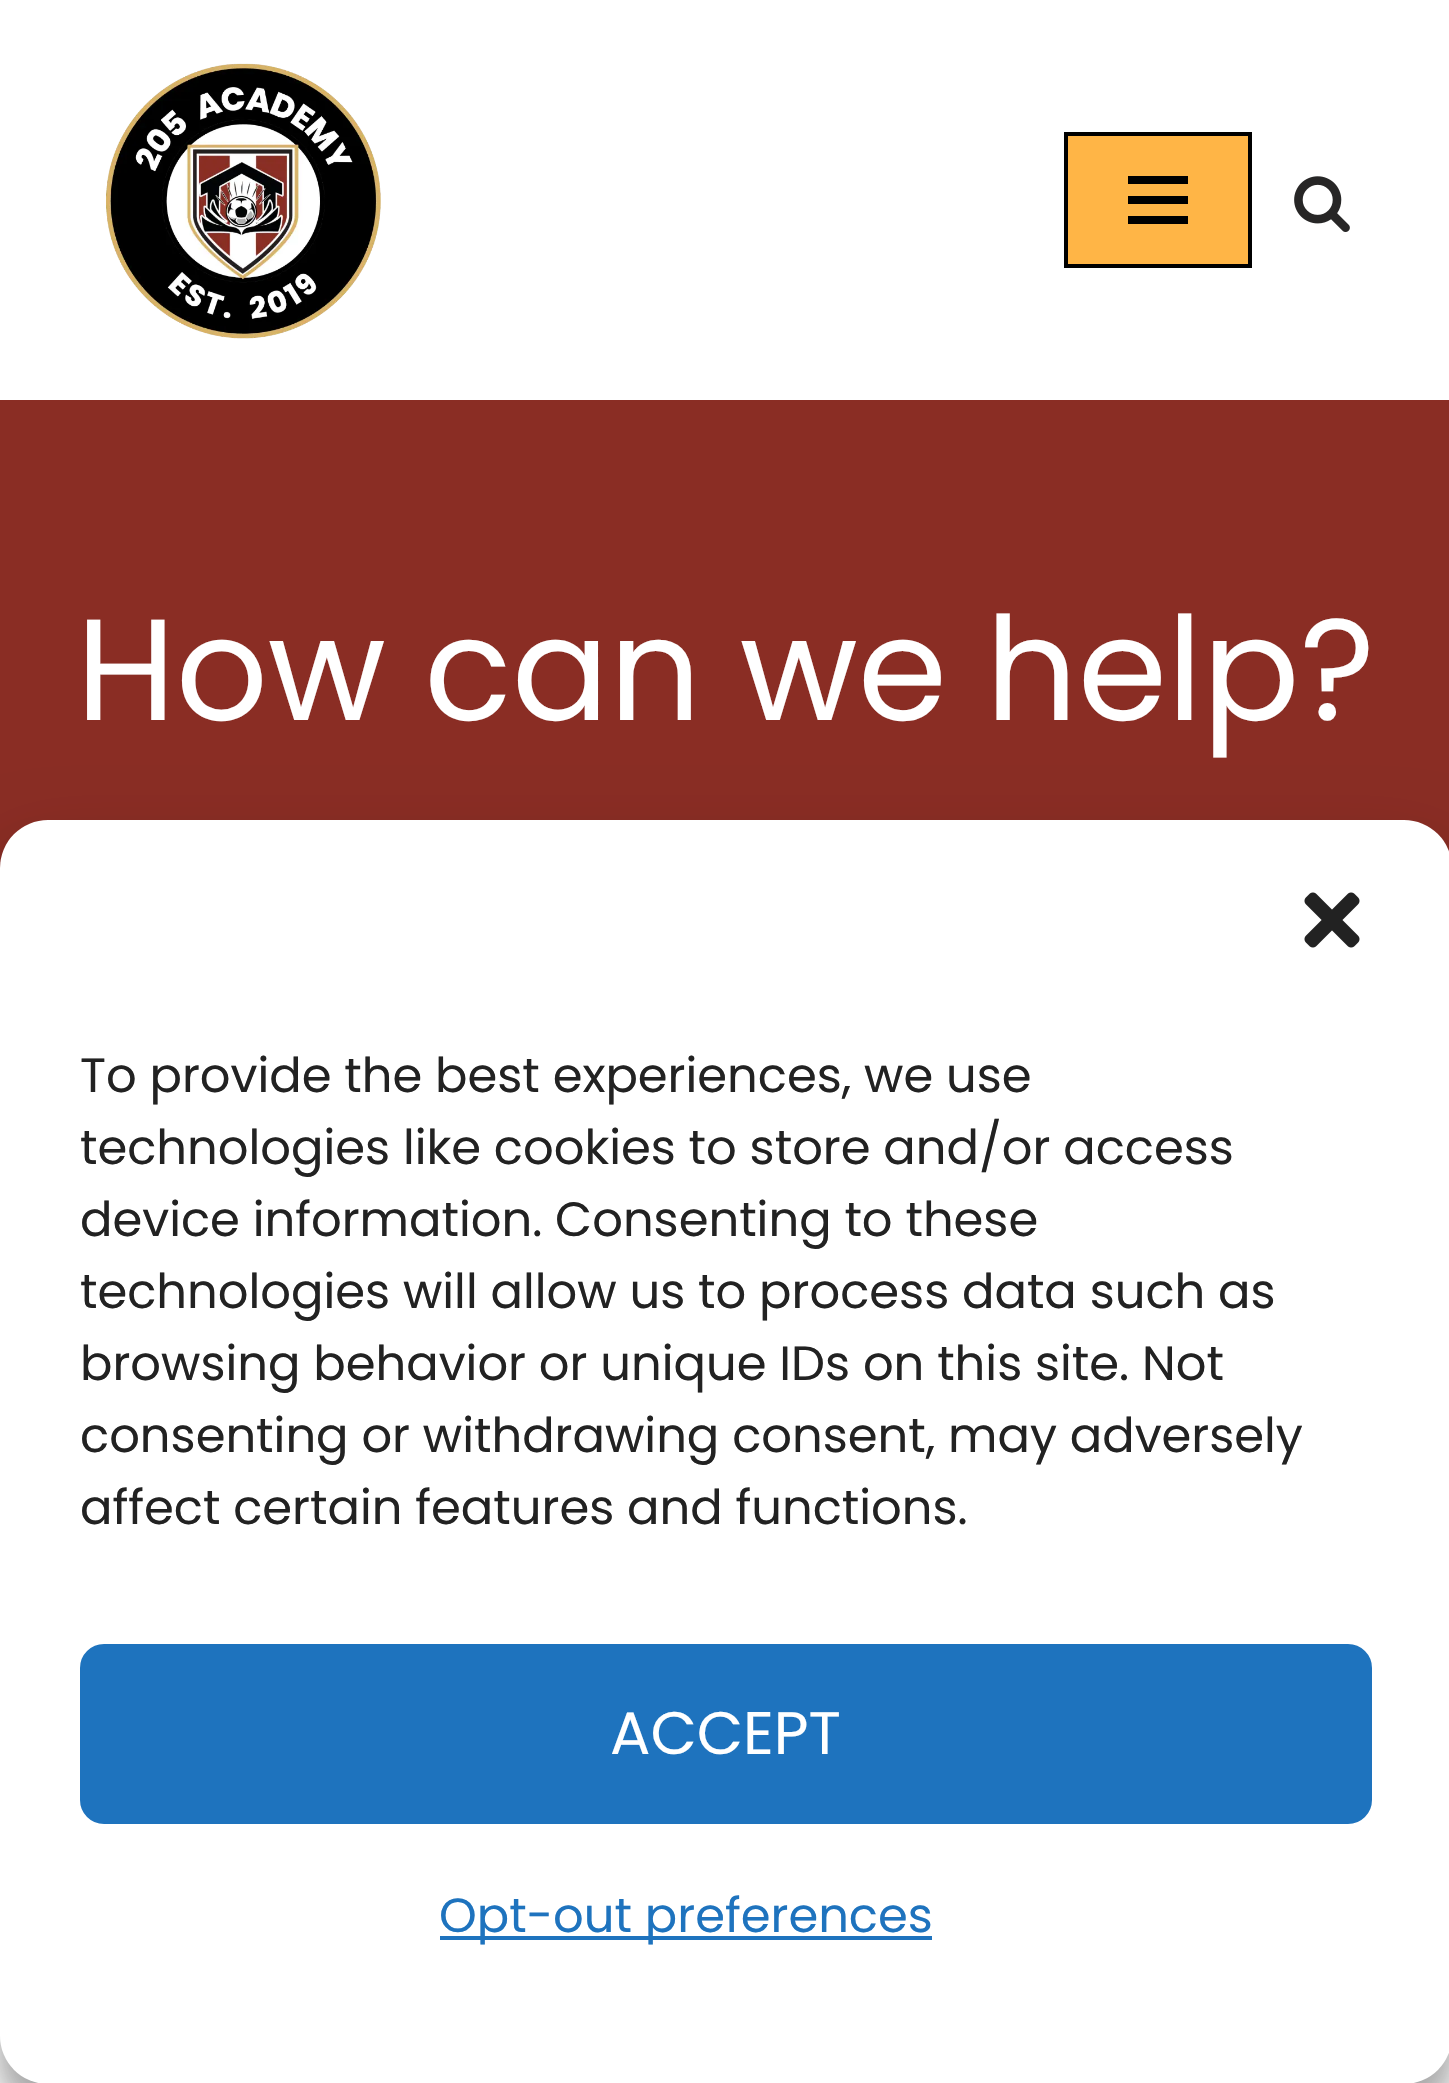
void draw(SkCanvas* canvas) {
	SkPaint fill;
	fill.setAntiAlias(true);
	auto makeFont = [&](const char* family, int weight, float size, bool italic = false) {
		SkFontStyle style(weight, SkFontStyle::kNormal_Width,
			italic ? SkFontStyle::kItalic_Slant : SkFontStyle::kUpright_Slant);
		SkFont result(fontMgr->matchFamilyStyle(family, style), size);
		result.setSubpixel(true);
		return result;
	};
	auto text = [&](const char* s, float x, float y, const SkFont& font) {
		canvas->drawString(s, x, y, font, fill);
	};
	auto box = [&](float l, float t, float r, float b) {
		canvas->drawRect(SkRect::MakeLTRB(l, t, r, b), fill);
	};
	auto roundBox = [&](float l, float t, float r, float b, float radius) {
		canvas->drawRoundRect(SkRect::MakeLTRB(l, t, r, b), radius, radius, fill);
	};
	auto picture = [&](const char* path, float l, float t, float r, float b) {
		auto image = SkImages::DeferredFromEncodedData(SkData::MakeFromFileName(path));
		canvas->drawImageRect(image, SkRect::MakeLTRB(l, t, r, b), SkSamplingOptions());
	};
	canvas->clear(0xFFFFFFFF);
	picture("image0.png", 106, 63, 381, 339);
	fill.setColor(0xFFFFB546);
	canvas->drawRect(SkRect::MakeLTRB(1066, 134, 1250, 266), fill);
	fill.setStyle(SkPaint::kStroke_Style);
	fill.setStrokeWidth(4);
	fill.setColor(0xFF000000);
	canvas->drawRect(SkRect::MakeLTRB(1066, 134, 1250, 266), fill);
	fill.setStyle(SkPaint::kFill_Style);
	box(1128, 176, 1188, 184);
	box(1128, 196, 1188, 204);
	box(1128, 216, 1188, 224);
	picture("image1.png", 1294, 176, 1350, 232);
	fill.setColor(0xFF8A2D24);
	box(0, 400, 1449, 868);
	fill.setColor(0x3B000000);
	fill.setMaskFilter(SkMaskFilter::MakeBlur(kNormal_SkBlurStyle, 12));
	canvas->drawRoundRect(SkRect::MakeLTRB(0, 844, 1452, 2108), 48, 48, fill);
	fill.setMaskFilter(nullptr);
	fill.setColor(0x30000000);
	fill.setMaskFilter(SkMaskFilter::MakeBlur(kNormal_SkBlurStyle, 40));
	canvas->drawRoundRect(SkRect::MakeLTRB(0, 860, 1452, 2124), 48, 48, fill);
	fill.setMaskFilter(nullptr);
	fill.setColor(0xFFFFFFFF);
	roundBox(0, 820, 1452, 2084, 48);
	picture("image2.png", 1304, 892, 1360, 948);
	fill.setColor(0xFF1E73BE);
	canvas->drawRoundRect(SkRect::MakeLTRB(82, 1646, 1370, 1822), 22, 22, fill);
	fill.setStyle(SkPaint::kStroke_Style);
	canvas->drawRoundRect(SkRect::MakeLTRB(82, 1646, 1370, 1822), 22, 22, fill);
	fill.setStyle(SkPaint::kFill_Style);
	box(440, 1936, 932, 1940);
	auto font1 = makeFont("Poppins", 400, 144);
	fill.setColor(0xFFFFFFFF);
	text("How can we help?", 76, 720, font1);
	auto font2 = makeFont("Poppins", 400, 48);
	fill.setColor(0xFF222222);
	text("To provide the best experiences, we use", 80, 1092, font2);
	text("technologies like cookies to store and/or access", 80, 1164, font2);
	text("device information. Consenting to these", 80, 1236, font2);
	text("technologies will allow us to process data such as", 80, 1308, font2);
	text("browsing behavior or unique IDs on this site. Not", 80, 1380, font2);
	text("consenting or withdrawing consent, may adversely", 80, 1452, font2);
	text("affect certain features and functions.", 80, 1524, font2);
	auto font3 = makeFont("Poppins", 400, 60);
	fill.setColor(0xFFFFFFFF);
	text("ACCEPT", 610, 1754, font3);
	fill.setColor(0xFF1E73BE);
	text("Opt-out preferences", 439, 1932, font2);
}
